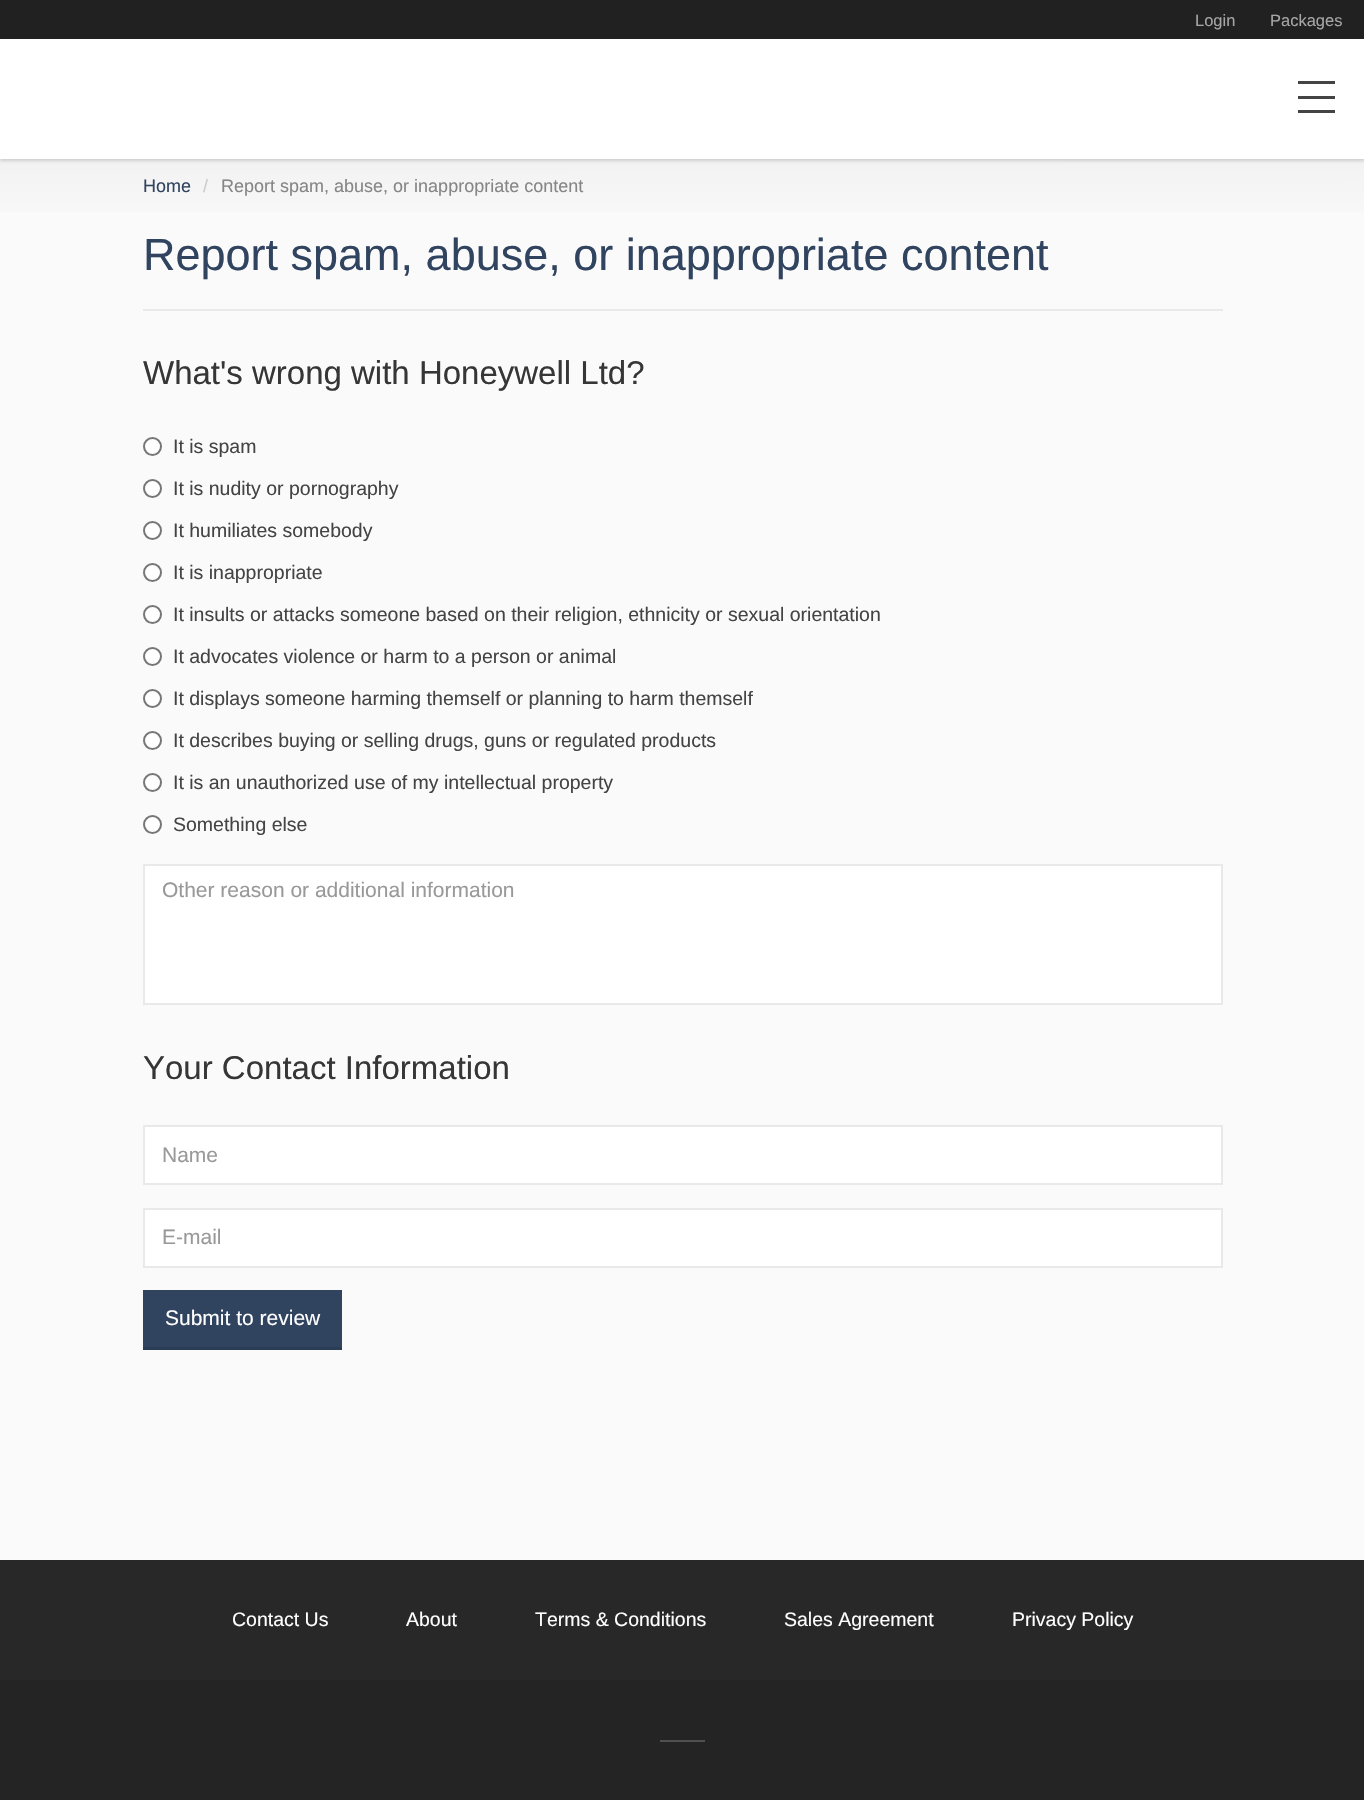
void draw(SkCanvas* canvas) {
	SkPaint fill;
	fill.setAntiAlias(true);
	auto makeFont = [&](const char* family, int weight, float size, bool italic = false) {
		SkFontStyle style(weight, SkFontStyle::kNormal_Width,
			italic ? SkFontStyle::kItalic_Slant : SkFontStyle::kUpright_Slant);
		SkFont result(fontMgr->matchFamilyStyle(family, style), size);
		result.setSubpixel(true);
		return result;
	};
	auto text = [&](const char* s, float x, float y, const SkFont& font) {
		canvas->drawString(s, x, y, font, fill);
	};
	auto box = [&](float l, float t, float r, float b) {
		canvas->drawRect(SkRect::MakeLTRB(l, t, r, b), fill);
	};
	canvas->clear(0xFFFAFAFA);
	fill.setColor(0xFF212121);
	box(0, 0, 1364, 39);
	{
		const SkColor colors[] = {0xFFF2F2F2, 0xFFFAFAFA};
		const float stops[] = {0, 0.06f};
		const SkPoint ends[] = {{682, 159}, {683, 1440}};
		fill.setShader(SkGradientShader::MakeLinear(ends, colors, stops, 2, SkTileMode::kClamp));
		fill.setAlpha(255);
	}
	box(0, 159, 1364, 212);
	fill.setShader(nullptr);
	fill.setColor(0x26000000);
	fill.setMaskFilter(SkMaskFilter::MakeBlur(kNormal_SkBlurStyle, 1.5f));
	canvas->drawRect(SkRect::MakeLTRB(0, 41, 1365, 161), fill);
	fill.setMaskFilter(nullptr);
	fill.setColor(0xFFFFFFFF);
	box(0, 39, 1364, 159);
	fill.setColor(0xFF444444);
	box(1298, 96, 1335, 99);
	box(1298, 81, 1335, 84);
	box(1298, 110, 1335, 113);
	fill.setColor(0xFFE9E9E9);
	box(143, 309, 1223, 311);
	fill.setColor(0xFFFFFFFF);
	canvas->drawCircle(152.5f, 446.5f, 8.5f, fill);
	fill.setStyle(SkPaint::kStroke_Style);
	fill.setStrokeWidth(2);
	fill.setColor(0xFF767676);
	canvas->drawCircle(152.5f, 446.5f, 8.5f, fill);
	fill.setStyle(SkPaint::kFill_Style);
	fill.setColor(0xFFFFFFFF);
	canvas->drawCircle(152.5f, 488.5f, 8.5f, fill);
	fill.setStyle(SkPaint::kStroke_Style);
	fill.setColor(0xFF767676);
	canvas->drawCircle(152.5f, 488.5f, 8.5f, fill);
	fill.setStyle(SkPaint::kFill_Style);
	fill.setColor(0xFFFFFFFF);
	canvas->drawCircle(152.5f, 530.5f, 8.5f, fill);
	fill.setStyle(SkPaint::kStroke_Style);
	fill.setColor(0xFF767676);
	canvas->drawCircle(152.5f, 530.5f, 8.5f, fill);
	fill.setStyle(SkPaint::kFill_Style);
	fill.setColor(0xFFFFFFFF);
	canvas->drawCircle(152.5f, 572.5f, 8.5f, fill);
	fill.setStyle(SkPaint::kStroke_Style);
	fill.setColor(0xFF767676);
	canvas->drawCircle(152.5f, 572.5f, 8.5f, fill);
	fill.setStyle(SkPaint::kFill_Style);
	fill.setColor(0xFFFFFFFF);
	canvas->drawCircle(152.5f, 614.5f, 8.5f, fill);
	fill.setStyle(SkPaint::kStroke_Style);
	fill.setColor(0xFF767676);
	canvas->drawCircle(152.5f, 614.5f, 8.5f, fill);
	fill.setStyle(SkPaint::kFill_Style);
	fill.setColor(0xFFFFFFFF);
	canvas->drawCircle(152.5f, 656.5f, 8.5f, fill);
	fill.setStyle(SkPaint::kStroke_Style);
	fill.setColor(0xFF767676);
	canvas->drawCircle(152.5f, 656.5f, 8.5f, fill);
	fill.setStyle(SkPaint::kFill_Style);
	fill.setColor(0xFFFFFFFF);
	canvas->drawCircle(152.5f, 698.5f, 8.5f, fill);
	fill.setStyle(SkPaint::kStroke_Style);
	fill.setColor(0xFF767676);
	canvas->drawCircle(152.5f, 698.5f, 8.5f, fill);
	fill.setStyle(SkPaint::kFill_Style);
	fill.setColor(0xFFFFFFFF);
	canvas->drawCircle(152.5f, 740.5f, 8.5f, fill);
	fill.setStyle(SkPaint::kStroke_Style);
	fill.setColor(0xFF767676);
	canvas->drawCircle(152.5f, 740.5f, 8.5f, fill);
	fill.setStyle(SkPaint::kFill_Style);
	fill.setColor(0xFFFFFFFF);
	canvas->drawCircle(152.5f, 782.5f, 8.5f, fill);
	fill.setStyle(SkPaint::kStroke_Style);
	fill.setColor(0xFF767676);
	canvas->drawCircle(152.5f, 782.5f, 8.5f, fill);
	fill.setStyle(SkPaint::kFill_Style);
	fill.setColor(0xFFFFFFFF);
	canvas->drawCircle(152.5f, 824.5f, 8.5f, fill);
	fill.setStyle(SkPaint::kStroke_Style);
	fill.setColor(0xFF767676);
	canvas->drawCircle(152.5f, 824.5f, 8.5f, fill);
	fill.setStyle(SkPaint::kFill_Style);
	fill.setColor(0xFFFFFFFF);
	canvas->drawRect(SkRect::MakeLTRB(144, 865, 1222, 1004), fill);
	fill.setStyle(SkPaint::kStroke_Style);
	fill.setColor(0xFFE9E9E9);
	canvas->drawRect(SkRect::MakeLTRB(144, 865, 1222, 1004), fill);
	fill.setStyle(SkPaint::kFill_Style);
	fill.setColor(0xFFFFFFFF);
	canvas->drawRect(SkRect::MakeLTRB(144, 1126, 1222, 1184), fill);
	fill.setStyle(SkPaint::kStroke_Style);
	fill.setColor(0xFFE9E9E9);
	canvas->drawRect(SkRect::MakeLTRB(144, 1126, 1222, 1184), fill);
	fill.setStyle(SkPaint::kFill_Style);
	fill.setColor(0xFFFFFFFF);
	canvas->drawRect(SkRect::MakeLTRB(144, 1209, 1222, 1267), fill);
	fill.setStyle(SkPaint::kStroke_Style);
	fill.setColor(0xFFE9E9E9);
	canvas->drawRect(SkRect::MakeLTRB(144, 1209, 1222, 1267), fill);
	fill.setStyle(SkPaint::kFill_Style);
	fill.setColor(0xFF30435F);
	box(143, 1290, 342, 1347);
	fill.setColor(0xFF2B3C56);
	box(143, 1347, 342, 1350);
	fill.setColor(0xFF282828);
	box(0, 1560, 1364, 1680);
	fill.setColor(0xFF242424);
	box(0, 1680, 1364, 1800);
	fill.setColor(0xFF505050);
	box(660, 1740, 705, 1742);
	auto font1 = makeFont("Liberation Sans", 400, 16.5f);
	fill.setColor(0xFFA6A6A6);
	text("Login", 1195, 26, font1);
	text("Packages", 1270, 26, font1);
	auto font2 = makeFont("Liberation Sans", 400, 18);
	fill.setColor(0xFF30435F);
	text("Home", 143, 192, font2);
	fill.setColor(0xFFCCCCCC);
	text("/", 203, 192, font2);
	fill.setColor(0xFF868686);
	text("Report spam, abuse, or inappropriate content", 221, 192, font2);
	auto font3 = makeFont("Liberation Sans", 400, 45);
	fill.setColor(0xFF30435F);
	text("Report spam, abuse, or inappropriate content", 143, 270, font3);
	auto font4 = makeFont("Liberation Sans", 400, 33);
	fill.setColor(0xFF363636);
	text("What's wrong with Honeywell Ltd?", 143, 384, font4);
	auto font5 = makeFont("Liberation Sans", 400, 19.5f);
	fill.setColor(0xFF444444);
	text("It is spam", 173, 453, font5);
	text("It is nudity or pornography", 173, 495, font5);
	text("It humiliates somebody", 173, 537, font5);
	text("It is inappropriate", 173, 579, font5);
	text("It insults or attacks someone based on their religion, ethnicity or sexual orientation", 173, 621, font5);
	text("It advocates violence or harm to a person or animal", 173, 663, font5);
	text("It displays someone harming themself or planning to harm themself", 173, 705, font5);
	text("It describes buying or selling drugs, guns or regulated products", 173, 747, font5);
	text("It is an unauthorized use of my intellectual property", 173, 789, font5);
	text("Something else", 173, 831, font5);
	auto font6 = makeFont("Liberation Sans", 400, 21);
	fill.setColor(0xFF999999);
	text("Other reason or additional information", 162, 897, font6);
	fill.setColor(0xFF363636);
	text("Your Contact Information", 143, 1079, font4);
	fill.setColor(0xFF999999);
	text("Name", 162, 1162, font6);
	text("E-mail", 162, 1244, font6);
	fill.setColor(0xFFFFFFFF);
	text("Submit to review", 165, 1325, font6);
	text("Contact Us", 232, 1626, font5);
	text("About", 406, 1626, font5);
	text("Terms & Conditions", 535, 1626, font5);
	text("Sales Agreement", 784, 1626, font5);
	text("Privacy Policy", 1012, 1626, font5);
}
